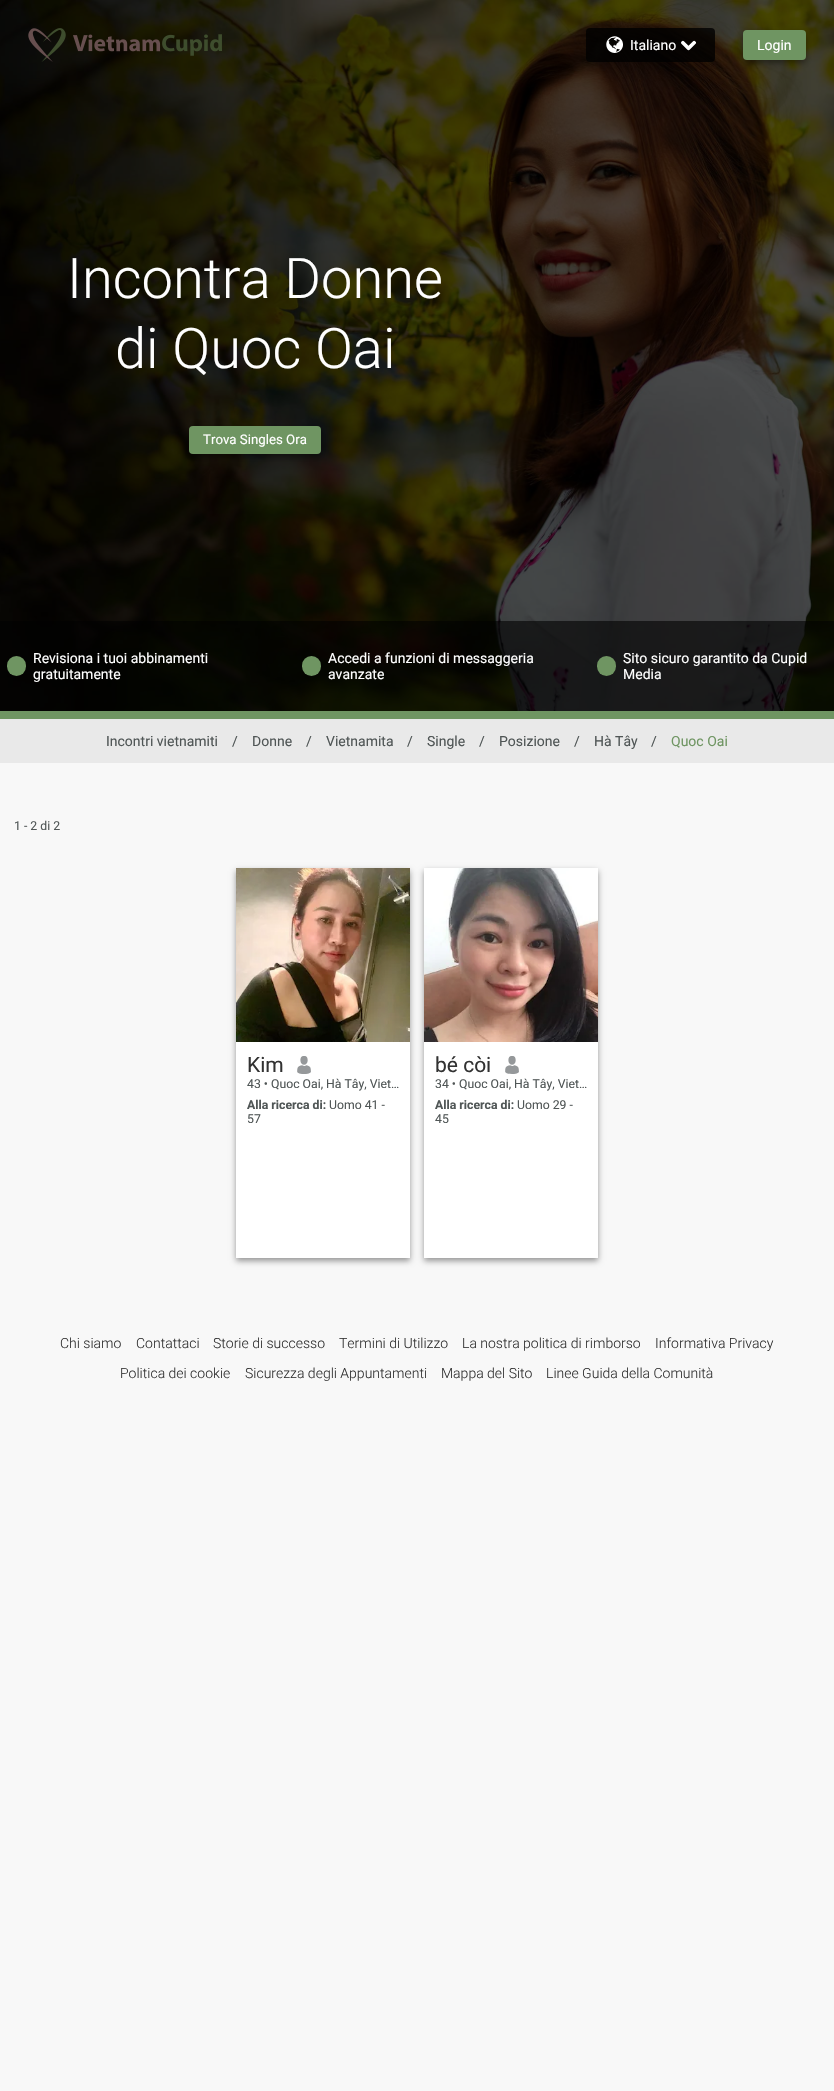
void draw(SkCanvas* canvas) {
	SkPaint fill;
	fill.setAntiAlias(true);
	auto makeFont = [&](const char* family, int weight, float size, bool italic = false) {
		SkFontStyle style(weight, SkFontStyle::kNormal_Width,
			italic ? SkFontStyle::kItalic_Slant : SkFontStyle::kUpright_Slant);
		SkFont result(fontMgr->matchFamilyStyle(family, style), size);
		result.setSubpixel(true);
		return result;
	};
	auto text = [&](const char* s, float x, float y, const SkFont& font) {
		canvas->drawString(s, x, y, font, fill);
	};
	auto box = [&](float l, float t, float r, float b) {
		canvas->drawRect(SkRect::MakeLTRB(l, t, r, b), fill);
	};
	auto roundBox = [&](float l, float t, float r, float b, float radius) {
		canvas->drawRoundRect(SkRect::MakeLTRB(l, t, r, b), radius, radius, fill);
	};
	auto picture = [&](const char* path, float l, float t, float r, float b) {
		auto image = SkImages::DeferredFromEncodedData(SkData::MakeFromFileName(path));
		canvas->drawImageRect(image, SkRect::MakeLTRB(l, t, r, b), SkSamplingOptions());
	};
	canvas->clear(0xFFF8F8F8);
	picture("image4.png", 0, 0, 834, 711);
	picture("image0.png", 28, 28, 66, 62);
	picture("image1.png", 73, 34, 222, 56);
	fill.setColor(0xCC000000);
	roundBox(586, 28, 715, 62, 4);
	picture("image2.png", 606, 36, 623, 53);
	picture("image3.png", 681, 40, 696, 51);
	fill.setColor(0x66000000);
	fill.setMaskFilter(SkMaskFilter::MakeBlur(kNormal_SkBlurStyle, 3));
	canvas->drawRoundRect(SkRect::MakeLTRB(743, 33, 806, 63), 4, 4, fill);
	fill.setMaskFilter(nullptr);
	fill.setColor(0xFF6F9562);
	roundBox(743, 30, 806, 60, 4);
	fill.setColor(0x66000000);
	fill.setMaskFilter(SkMaskFilter::MakeBlur(kNormal_SkBlurStyle, 3));
	canvas->drawRoundRect(SkRect::MakeLTRB(189, 429, 321, 457), 4, 4, fill);
	fill.setMaskFilter(nullptr);
	fill.setColor(0xFF6F9562);
	roundBox(189, 426, 321, 454, 4);
	fill.setColor(0x99000000);
	box(0, 621, 834, 711);
	fill.setColor(0xFF6F9562);
	roundBox(7, 656, 26, 676, 9.5f);
	roundBox(302, 656, 321, 676, 9.5f);
	roundBox(597, 656, 616, 676, 9.5f);
	box(0, 711, 834, 719);
	fill.setColor(0xFFE9E9E9);
	box(0, 719, 834, 763);
	fill.setColor(0x66000000);
	fill.setMaskFilter(SkMaskFilter::MakeBlur(kNormal_SkBlurStyle, 3));
	canvas->drawRect(SkRect::MakeLTRB(236, 871, 410, 1261), fill);
	fill.setMaskFilter(nullptr);
	fill.setColor(0xFFFFFFFF);
	box(236, 1042, 410, 1258);
	picture("image5.png", 236, 868, 410, 1042);
	picture("image6.png", 297, 1056, 311, 1074);
	fill.setColor(0x66000000);
	fill.setMaskFilter(SkMaskFilter::MakeBlur(kNormal_SkBlurStyle, 3));
	canvas->drawRect(SkRect::MakeLTRB(424, 871, 598, 1261), fill);
	fill.setMaskFilter(nullptr);
	fill.setColor(0xFFFFFFFF);
	box(424, 1042, 598, 1258);
	picture("image7.png", 424, 868, 598, 1042);
	picture("image8.png", 505, 1056, 519, 1074);
	auto font1 = makeFont("Roboto", 400, 14);
	text("Italiano", 630, 50, font1);
	text("Login", 757, 50, font1);
	auto font2 = makeFont("Roboto", 300, 56);
	text("Incontra Donne", 67, 298, font2);
	text("di Quoc Oai", 115, 368, font2);
	auto font3 = makeFont("Roboto", 400, 13.25f);
	text("Trova Singles Ora", 203, 444, font3);
	text("Revisiona i tuoi abbinamenti", 33, 663, font1);
	text("gratuitamente", 33, 679, font1);
	text("Accedi a funzioni di messaggeria", 328, 663, font1);
	text("avanzate", 328, 679, font1);
	text("Sito sicuro garantito da Cupid", 623, 663, font1);
	text("Media", 623, 679, font1);
	fill.setColor(0xFF505656);
	text("Incontri vietnamiti", 106, 746, font1);
	text("/", 232, 746, font1);
	text("Donne", 252, 746, font1);
	text("/", 306, 746, font1);
	text("Vietnamita", 326, 746, font1);
	text("/", 407, 746, font1);
	text("Single", 427, 746, font1);
	text("/", 479, 746, font1);
	text("Posizione", 499, 746, font1);
	text("/", 574, 746, font1);
	text("Hà Tây", 594, 746, font1);
	text("/", 651, 746, font1);
	fill.setColor(0xFF6F9562);
	text("Quoc Oai", 671, 746, font1);
	auto font4 = makeFont("Roboto", 400, 12.25f);
	fill.setColor(0xFF505656);
	text("1 - 2 di 2", 14, 830, font4);
	auto font5 = makeFont("Roboto", 400, 21);
	fill.setColor(0xFF323232);
	text("Kim", 247, 1072, font5);
	fill.setColor(0xFF505656);
	text("43 • Quoc Oai, Hà Tây, Viet…", 247, 1088, font4);
	auto font6 = makeFont("Roboto", 700, 12.25f);
	text("Alla ricerca di:", 247, 1109, font6);
	text("Uomo 41 -", 329, 1109, font4);
	text("57", 247, 1123, font4);
	fill.setColor(0xFF323232);
	text("bé còi", 435, 1072, font5);
	fill.setColor(0xFF505656);
	text("34 • Quoc Oai, Hà Tây, Viet…", 435, 1088, font4);
	text("Alla ricerca di:", 435, 1109, font6);
	text("Uomo 29 -", 517, 1109, font4);
	text("45", 435, 1123, font4);
	auto font7 = makeFont("Roboto", 300, 14);
	fill.setColor(0xFF323232);
	text("Chi siamo", 60, 1348, font7);
	text("Contattaci", 136, 1348, font7);
	text("Storie di successo", 213, 1348, font7);
	text("Termini di Utilizzo", 339, 1348, font7);
	text("La nostra politica di rimborso", 462, 1348, font7);
	text("Informativa Privacy", 655, 1348, font7);
	text("Politica dei cookie", 120, 1378, font7);
	text("Sicurezza degli Appuntamenti", 245, 1378, font7);
	text("Mappa del Sito", 441, 1378, font7);
	text("Linee Guida della Comunità", 546, 1378, font7);
}
